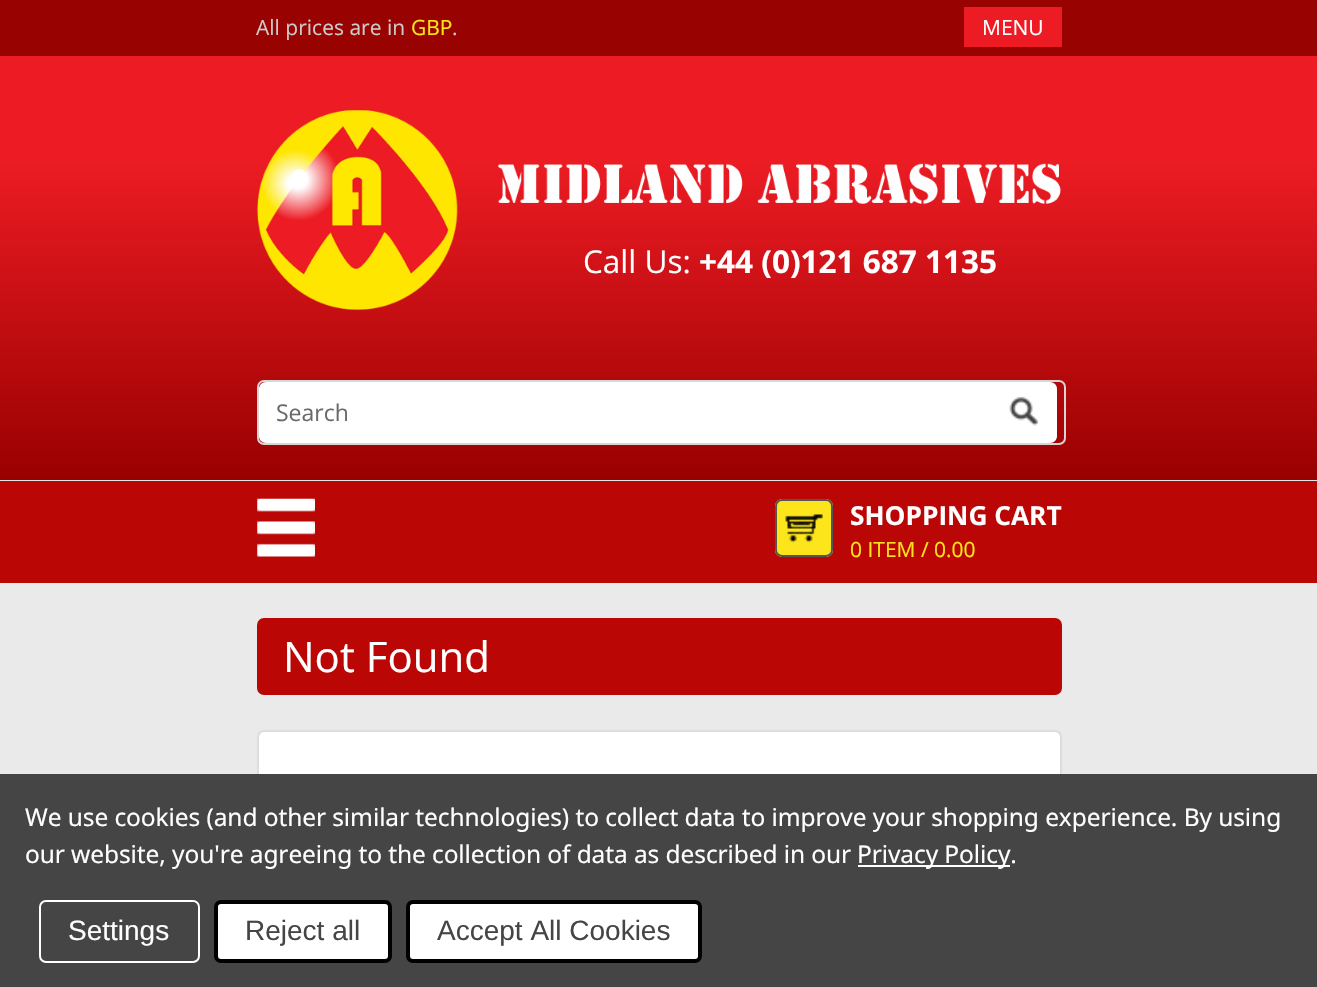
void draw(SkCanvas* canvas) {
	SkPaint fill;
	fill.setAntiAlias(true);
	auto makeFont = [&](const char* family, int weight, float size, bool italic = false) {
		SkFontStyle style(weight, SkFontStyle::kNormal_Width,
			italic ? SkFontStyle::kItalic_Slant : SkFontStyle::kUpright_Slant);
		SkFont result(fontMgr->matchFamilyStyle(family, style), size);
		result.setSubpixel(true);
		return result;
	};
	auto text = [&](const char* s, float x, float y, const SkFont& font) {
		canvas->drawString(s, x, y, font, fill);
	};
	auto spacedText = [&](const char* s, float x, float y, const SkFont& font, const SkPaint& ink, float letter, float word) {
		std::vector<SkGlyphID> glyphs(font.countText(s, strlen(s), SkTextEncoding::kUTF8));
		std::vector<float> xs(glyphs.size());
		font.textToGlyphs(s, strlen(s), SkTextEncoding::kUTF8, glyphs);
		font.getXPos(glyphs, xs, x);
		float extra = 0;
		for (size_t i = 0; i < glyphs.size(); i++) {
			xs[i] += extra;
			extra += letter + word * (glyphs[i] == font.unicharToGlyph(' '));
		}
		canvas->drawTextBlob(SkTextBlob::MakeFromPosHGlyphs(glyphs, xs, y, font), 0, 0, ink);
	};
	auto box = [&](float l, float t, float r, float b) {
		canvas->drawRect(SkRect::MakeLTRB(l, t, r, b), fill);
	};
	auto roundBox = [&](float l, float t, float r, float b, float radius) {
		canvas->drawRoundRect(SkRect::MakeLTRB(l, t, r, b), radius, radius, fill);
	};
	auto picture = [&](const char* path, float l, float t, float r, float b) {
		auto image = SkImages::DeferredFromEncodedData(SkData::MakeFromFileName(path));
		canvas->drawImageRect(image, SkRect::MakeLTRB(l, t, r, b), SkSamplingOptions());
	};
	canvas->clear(0xFFEAEAEA);
	fill.setColor(0xFF980200);
	box(0, 0, 1317, 56);
	fill.setColor(0xFFEC1B24);
	box(964, 7, 1062, 47);
	{
		const SkColor colors[] = {0xFFED1C24, 0xFF990000};
		const float stops[] = {0.24f, 1};
		const SkPoint ends[] = {{659, 56}, {659, 480}};
		fill.setShader(SkGradientShader::MakeLinear(ends, colors, stops, 2, SkTileMode::kClamp));
		fill.setAlpha(255);
	}
	box(0, 56, 1317, 480);
	fill.setShader(nullptr);
	fill.setColor(0xFFE5E5E5);
	box(0, 480, 1317, 481);
	fill.setStyle(SkPaint::kStroke_Style);
	fill.setStrokeWidth(2);
	fill.setColor(0xFFD6D6D6);
	canvas->drawRoundRect(SkRect::MakeLTRB(258, 381, 1065, 444), 6, 6, fill);
	fill.setStyle(SkPaint::kFill_Style);
	fill.setColor(0xFFFFFFFF);
	canvas->drawPath(SkPathBuilder().moveTo(266, 382).lineTo(991, 382).lineTo(991, 443).lineTo(266, 443).cubicTo(262, 443, 259, 440, 259, 436).lineTo(259, 389).cubicTo(259, 385, 262, 382, 266, 382).close().detach(), fill);
	canvas->drawPath(SkPathBuilder().moveTo(991, 382).lineTo(1050, 382).cubicTo(1054, 382, 1057, 385, 1057, 389).lineTo(1057, 436).cubicTo(1057, 440, 1054, 443, 1050, 443).lineTo(991, 443).close().detach(), fill);
	picture("image1.png", 1009, 396, 1039, 426);
	fill.setColor(0xFFBA0604);
	box(0, 481, 1317, 583);
	picture("image2.png", 257, 498, 315, 557);
	fill.setColor(0xFFFCE51A);
	roundBox(775, 499, 833, 557, 7);
	picture("image3.png", 785, 514, 823, 543);
	fill.setStyle(SkPaint::kStroke_Style);
	fill.setColor(0xFF555555);
	canvas->drawRoundRect(SkRect::MakeLTRB(776, 500, 832, 556), 6, 6, fill);
	fill.setStyle(SkPaint::kFill_Style);
	fill.setColor(0xFFBA0604);
	roundBox(257, 618, 1062, 695, 7);
	fill.setColor(0xFFFFFFFF);
	canvas->drawPath(SkPathBuilder().moveTo(264, 732).lineTo(1055, 732).cubicTo(1058, 732, 1060, 734, 1060, 737).lineTo(1060, 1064).cubicTo(1060, 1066, 1058, 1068, 1055, 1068).lineTo(264, 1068).cubicTo(261, 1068, 259, 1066, 259, 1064).lineTo(259, 737).cubicTo(259, 734, 261, 732, 264, 732).close().detach(), fill);
	fill.setStyle(SkPaint::kStroke_Style);
	fill.setColor(0xFFDDDDDD);
	canvas->drawRoundRect(SkRect::MakeLTRB(258, 731, 1061, 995), 6, 6, fill);
	fill.setStyle(SkPaint::kFill_Style);
	fill.setColor(0xFF454545);
	box(0, 774, 1317, 987);
	fill.setColor(0xFFFFFFFF);
	box(858, 865, 1010, 867);
	fill.setStyle(SkPaint::kStroke_Style);
	canvas->drawRoundRect(SkRect::MakeLTRB(40, 901, 199, 962), 6, 6, fill);
	fill.setStyle(SkPaint::kFill_Style);
	canvas->drawRoundRect(SkRect::MakeLTRB(216, 902, 390, 961), 5, 5, fill);
	fill.setStyle(SkPaint::kStroke_Style);
	fill.setStrokeWidth(4);
	fill.setColor(0xFF000000);
	canvas->drawRoundRect(SkRect::MakeLTRB(216, 902, 390, 961), 5, 5, fill);
	fill.setStyle(SkPaint::kFill_Style);
	fill.setColor(0xFFFFFFFF);
	canvas->drawRoundRect(SkRect::MakeLTRB(408, 902, 700, 961), 5, 5, fill);
	fill.setStyle(SkPaint::kStroke_Style);
	fill.setColor(0xFF000000);
	canvas->drawRoundRect(SkRect::MakeLTRB(408, 902, 700, 961), 5, 5, fill);
	auto font1 = makeFont("Open Sans", 400, 21);
	fill.setStyle(SkPaint::kFill_Style);
	fill.setColor(0xFFCCCCCC);
	text("All prices are in", 256, 35, font1);
	fill.setColor(0xFFFCE51A);
	text("GBP", 411, 35, font1);
	fill.setColor(0xFFCCCCCC);
	text(".", 452, 35, font1);
	fill.setColor(0xFFFFFFFF);
	text("MENU", 982, 35, font1);
	auto font2 = makeFont("Open Sans", 400, 31.5f);
	text("Call Us:", 583, 273, font2);
	auto font3 = makeFont("Open Sans", 700, 31.5f);
	text("+44 (0)121 687 1135", 699, 273, font3);
	picture("image0.png", 257, 110, 1061, 310);
	canvas->save();
	canvas->clipRect(SkRect::MakeLTRB(277, 397, 973, 429));
	auto font4 = makeFont("Open Sans", 400, 23);
	fill.setColor(0xFF6A6A6A);
	text("Search", 276, 421, font4);
	canvas->restore();
	auto font5 = makeFont("Open Sans", 700, 26.25f);
	fill.setColor(0xFFFFFFFF);
	text("SHOPPING CART", 850, 525, font5);
	fill.setColor(0xFFFCE51A);
	text("0 ITEM / 0.00", 850, 557, font1);
	auto font6 = makeFont("Open Sans", 400, 42);
	fill.setColor(0xFFFFFFFF);
	text("Not Found", 283, 672, font6);
	auto font7 = makeFont("Noto Sans", 400, 24.5f);
	spacedText("We use cookies (and other similar technologies) to collect data to improve your shopping experience. By using", 25, 826, font7, fill, -0.09f, 0);
	spacedText("our website, you're agreeing to the collection of data as described in our", 25, 863, font7, fill, -0.09f, 0);
	spacedText("Privacy Policy.", 857, 863, font7, fill, -0.09f, 0);
	auto font8 = makeFont("Liberation Sans", 400, 28);
	text("Settings", 68, 940, font8);
	fill.setColor(0xFF454545);
	text("Reject all", 245, 940, font8);
	text("Accept All Cookies", 437, 940, font8);
}
